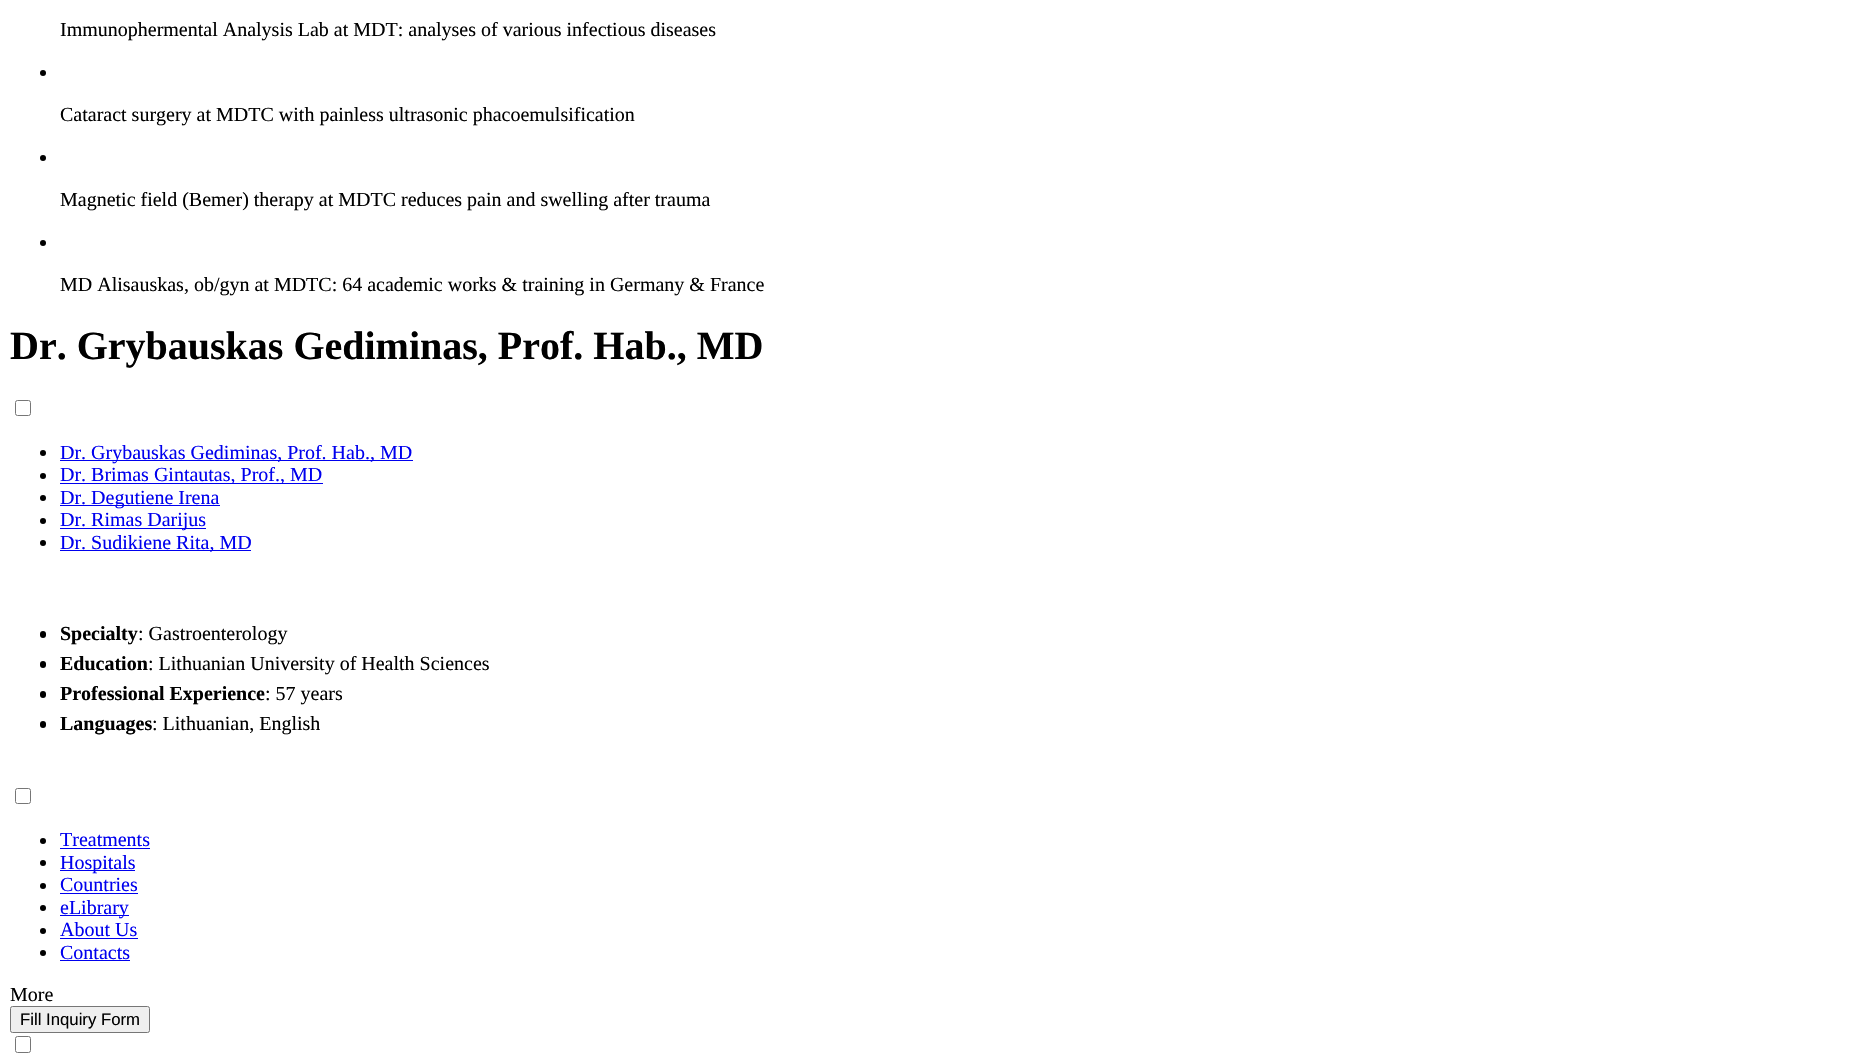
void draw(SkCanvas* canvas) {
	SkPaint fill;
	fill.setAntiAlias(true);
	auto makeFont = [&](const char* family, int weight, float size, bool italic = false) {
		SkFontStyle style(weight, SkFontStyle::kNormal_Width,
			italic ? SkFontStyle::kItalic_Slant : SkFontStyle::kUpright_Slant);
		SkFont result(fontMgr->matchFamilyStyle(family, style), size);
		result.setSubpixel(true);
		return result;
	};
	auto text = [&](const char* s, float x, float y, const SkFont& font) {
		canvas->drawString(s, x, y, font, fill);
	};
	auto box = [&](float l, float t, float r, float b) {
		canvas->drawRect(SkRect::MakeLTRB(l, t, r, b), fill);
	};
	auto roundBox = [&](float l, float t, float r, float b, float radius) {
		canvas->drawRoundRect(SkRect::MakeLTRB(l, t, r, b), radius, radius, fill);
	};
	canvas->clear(0xFFFFFFFF);
	fill.setColor(0xFF000000);
	canvas->drawCircle(43, 73, 3, fill);
	canvas->drawCircle(43, 158, 3, fill);
	canvas->drawCircle(43, 243, 3, fill);
	fill.setStyle(SkPaint::kStroke_Style);
	fill.setStrokeWidth(1);
	fill.setColor(0xFF767676);
	canvas->drawRoundRect(SkRect::MakeLTRB(15.5f, 400.5f, 30.5f, 415.5f), 2, 2, fill);
	fill.setStyle(SkPaint::kFill_Style);
	fill.setColor(0xFF000000);
	canvas->drawCircle(43, 453, 3, fill);
	fill.setColor(0xFF0000EE);
	box(60, 460, 413, 461);
	fill.setColor(0xFF000000);
	canvas->drawCircle(43, 476, 3, fill);
	fill.setColor(0xFF0000EE);
	box(60, 483, 323, 484);
	fill.setColor(0xFF000000);
	canvas->drawCircle(43, 498, 3, fill);
	fill.setColor(0xFF0000EE);
	box(60, 505, 220, 506);
	fill.setColor(0xFF000000);
	canvas->drawCircle(43, 521, 3, fill);
	fill.setColor(0xFF0000EE);
	box(60, 528, 206, 529);
	fill.setColor(0xFF000000);
	canvas->drawCircle(43, 543, 3, fill);
	fill.setColor(0xFF0000EE);
	box(60, 550, 251, 551);
	fill.setColor(0xFF000000);
	roundBox(40, 631, 46, 638, 3);
	roundBox(40, 661, 46, 668, 3);
	roundBox(40, 691, 46, 698, 3);
	roundBox(40, 721, 46, 728, 3);
	fill.setStyle(SkPaint::kStroke_Style);
	fill.setColor(0xFF767676);
	canvas->drawRoundRect(SkRect::MakeLTRB(15.5f, 788.5f, 30.5f, 803.5f), 2, 2, fill);
	fill.setStyle(SkPaint::kFill_Style);
	fill.setColor(0xFF000000);
	canvas->drawCircle(43, 841, 3, fill);
	fill.setColor(0xFF0000EE);
	box(60, 848, 150, 849);
	fill.setColor(0xFF000000);
	canvas->drawCircle(43, 863, 3, fill);
	fill.setColor(0xFF0000EE);
	box(60, 870, 135, 871);
	fill.setColor(0xFF000000);
	canvas->drawCircle(43, 886, 3, fill);
	fill.setColor(0xFF0000EE);
	box(60, 893, 138, 894);
	fill.setColor(0xFF000000);
	canvas->drawCircle(43, 908, 3, fill);
	fill.setColor(0xFF0000EE);
	box(60, 915, 129, 916);
	fill.setColor(0xFF000000);
	canvas->drawCircle(43, 931, 3, fill);
	fill.setColor(0xFF0000EE);
	box(60, 938, 138, 939);
	fill.setColor(0xFF000000);
	canvas->drawCircle(43, 953, 3, fill);
	fill.setColor(0xFF0000EE);
	box(60, 960, 130, 961);
	fill.setColor(0xFFEFEFEF);
	canvas->drawRoundRect(SkRect::MakeLTRB(10.5f, 1006.5f, 149.5f, 1032.5f), 2, 2, fill);
	fill.setStyle(SkPaint::kStroke_Style);
	fill.setColor(0xFF767676);
	canvas->drawRoundRect(SkRect::MakeLTRB(10.5f, 1006.5f, 149.5f, 1032.5f), 2, 2, fill);
	canvas->drawRoundRect(SkRect::MakeLTRB(15.5f, 1036.5f, 30.5f, 1052.5f), 2, 2, fill);
	auto font1 = makeFont("Liberation Serif", 400, 20);
	fill.setStyle(SkPaint::kFill_Style);
	fill.setColor(0xFF000000);
	text("Immunophermental Analysis Lab at MDT: analyses of various infectious diseases", 60, 36, font1);
	text("Cataract surgery at MDTC with painless ultrasonic phacoemulsification", 60, 121, font1);
	text("Magnetic field (Bemer) therapy at MDTC reduces pain and swelling after trauma", 60, 206, font1);
	text("MD Alisauskas, ob/gyn at MDTC: 64 academic works & training in Germany & France", 60, 291, font1);
	auto font2 = makeFont("Liberation Serif", 700, 40);
	text("Dr. Grybauskas Gediminas, Prof. Hab., MD", 10, 359, font2);
	fill.setColor(0xFF0000EE);
	text("Dr. Grybauskas Gediminas, Prof. Hab., MD", 60, 459, font1);
	text("Dr. Brimas Gintautas, Prof., MD", 60, 481, font1);
	text("Dr. Degutiene Irena", 60, 504, font1);
	text("Dr. Rimas Darijus", 60, 526, font1);
	text("Dr. Sudikiene Rita, MD", 60, 549, font1);
	auto font3 = makeFont("Liberation Serif", 700, 20);
	fill.setColor(0xFF000000);
	text("Specialty", 60, 640, font3);
	text(": Gastroenterology", 138, 640, font1);
	text("Education", 60, 670, font3);
	text(": Lithuanian University of Health Sciences", 148, 670, font1);
	text("Professional Experience", 60, 700, font3);
	text(": 57 years", 265, 700, font1);
	text("Languages", 60, 730, font3);
	text(": Lithuanian, English", 152, 730, font1);
	fill.setColor(0xFF0000EE);
	text("Treatments", 60, 846, font1);
	text("Hospitals", 60, 869, font1);
	text("Countries", 60, 891, font1);
	text("eLibrary", 60, 914, font1);
	text("About Us", 60, 936, font1);
	text("Contacts", 60, 959, font1);
	fill.setColor(0xFF000000);
	text("More", 10, 1001, font1);
	auto font4 = makeFont("Liberation Sans", 400, 16.75f);
	text("Fill Inquiry Form", 20, 1025, font4);
}
